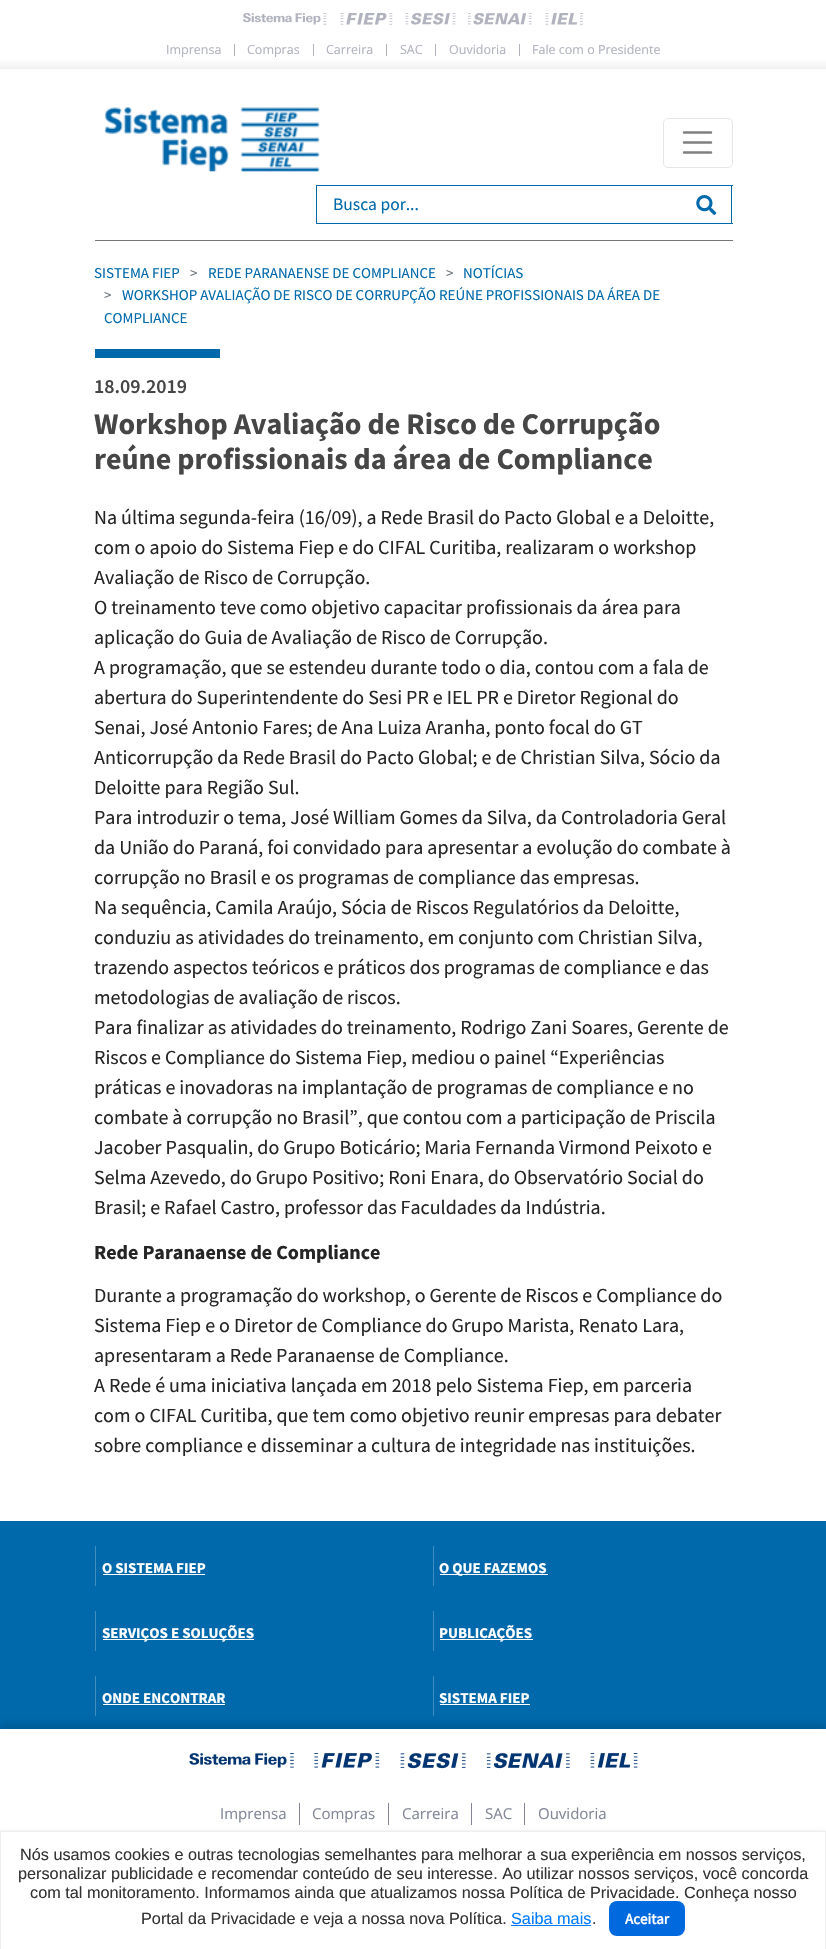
void draw(SkCanvas* canvas) {
	SkPaint fill;
	fill.setAntiAlias(true);
	auto makeFont = [&](const char* family, int weight, float size, bool italic = false) {
		SkFontStyle style(weight, SkFontStyle::kNormal_Width,
			italic ? SkFontStyle::kItalic_Slant : SkFontStyle::kUpright_Slant);
		SkFont result(fontMgr->matchFamilyStyle(family, style), size);
		result.setSubpixel(true);
		return result;
	};
	auto text = [&](const char* s, float x, float y, const SkFont& font) {
		canvas->drawString(s, x, y, font, fill);
	};
	auto box = [&](float l, float t, float r, float b) {
		canvas->drawRect(SkRect::MakeLTRB(l, t, r, b), fill);
	};
	auto roundBox = [&](float l, float t, float r, float b, float radius) {
		canvas->drawRoundRect(SkRect::MakeLTRB(l, t, r, b), radius, radius, fill);
	};
	auto picture = [&](const char* path, float l, float t, float r, float b) {
		auto image = SkImages::DeferredFromEncodedData(SkData::MakeFromFileName(path));
		canvas->drawImageRect(image, SkRect::MakeLTRB(l, t, r, b), SkSamplingOptions());
	};
	canvas->clear(0xFFFFFFFF);
	{
		const SkColor colors[] = {0xFFFFFFFF, 0xFFFFFFFF, 0xFFF0F0F0};
		const float stops[] = {0, 0.85f, 1};
		const SkPoint ends[] = {{413, 0}, {413, 69}};
		fill.setShader(SkGradientShader::MakeLinear(ends, colors, stops, 3, SkTileMode::kClamp));
		fill.setAlpha(255);
	}
	box(0, 60, 826, 69);
	picture("image0.png", 243, 13, 327, 25);
	picture("image1.png", 340, 13, 393, 25);
	picture("image2.png", 405, 13, 456, 25);
	picture("image3.png", 468, 13, 532, 25);
	picture("image4.png", 545, 13, 583, 25);
	fill.setShader(nullptr);
	fill.setColor(0xFFB1B3BE);
	box(234, 44, 235, 56);
	box(313, 44, 314, 56);
	box(386, 44, 387, 56);
	box(435, 44, 436, 56);
	box(519, 44, 520, 56);
	picture("image5.png", 104, 107, 320, 172);
	fill.setStyle(SkPaint::kStroke_Style);
	fill.setStrokeWidth(1);
	fill.setColor(0xFFE6E6E6);
	canvas->drawRoundRect(SkRect::MakeLTRB(663.5f, 118.5f, 732.5f, 167.5f), 4.5f, 4.5f, fill);
	fill.setStrokeWidth(2.5f);
	fill.setStrokeCap(SkPaint::kRound_Cap);
	fill.setColor(0xFF808080);
	canvas->drawPath(SkPathBuilder().moveTo(684, 132.5f).lineTo(711, 132.5f).moveTo(684, 142.5f).lineTo(711, 142.5f).moveTo(684, 152.5f).lineTo(711, 152.5f).detach(), fill);
	fill.setStyle(SkPaint::kFill_Style);
	fill.setColor(0xFF0069AB);
	box(316, 185, 733, 186);
	box(316, 223, 681, 224);
	box(316, 185, 317, 224);
	box(731, 185, 732, 224);
	box(681, 223, 733, 224);
	picture("image6.png", 696, 195, 717, 215);
	fill.setColor(0xFF777777);
	box(95, 240, 733, 241);
	fill.setColor(0xFF0069AB);
	box(95, 349, 220, 358);
	box(0, 1521, 826, 1729);
	fill.setColor(0xFF408FC0);
	box(95, 1546, 96, 1586);
	fill.setColor(0xFFFFFFFF);
	box(103, 1574, 205, 1575);
	fill.setColor(0xFF408FC0);
	box(433, 1546, 434, 1586);
	fill.setColor(0xFFFFFFFF);
	box(440, 1574, 548, 1575);
	fill.setColor(0xFF408FC0);
	box(95, 1611, 96, 1651);
	fill.setColor(0xFFFFFFFF);
	box(103, 1639, 254, 1640);
	fill.setColor(0xFF408FC0);
	box(433, 1611, 434, 1651);
	fill.setColor(0xFFFFFFFF);
	box(440, 1639, 533, 1640);
	fill.setColor(0xFF408FC0);
	box(95, 1676, 96, 1716);
	fill.setColor(0xFFFFFFFF);
	box(103, 1704, 225, 1705);
	fill.setColor(0xFF408FC0);
	box(433, 1676, 434, 1716);
	fill.setColor(0xFFFFFFFF);
	box(440, 1704, 530, 1705);
	fill.setColor(0x29000000);
	fill.setMaskFilter(SkMaskFilter::MakeBlur(kNormal_SkBlurStyle, 4));
	canvas->drawRect(SkRect::MakeLTRB(0, 1725, 826, 1915), fill);
	fill.setMaskFilter(nullptr);
	fill.setColor(0xFFFFFFFF);
	box(0, 1729, 826, 1831);
	fill.setColor(0x66000000);
	fill.setMaskFilter(SkMaskFilter::MakeBlur(kNormal_SkBlurStyle, 2.5f));
	canvas->drawRect(SkRect::MakeLTRB(0, 1834, 826, 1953), fill);
	fill.setMaskFilter(nullptr);
	fill.setColor(0xFFFFFFFF);
	canvas->drawRect(SkRect::MakeLTRB(0.5f, 1831.5f, 825.5f, 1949.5f), fill);
	fill.setStyle(SkPaint::kStroke_Style);
	fill.setStrokeWidth(1);
	fill.setStrokeCap(SkPaint::kButt_Cap);
	fill.setColor(0xFFEEEEEE);
	canvas->drawRect(SkRect::MakeLTRB(0.5f, 1831.5f, 825.5f, 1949.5f), fill);
	fill.setStyle(SkPaint::kFill_Style);
	fill.setColor(0xFF007BFF);
	box(511, 1925, 591, 1926);
	picture("image7.png", 189, 1753, 294, 1768);
	picture("image8.png", 314, 1753, 380, 1768);
	picture("image9.png", 400, 1753, 466, 1769);
	picture("image10.png", 486, 1753, 570, 1769);
	picture("image11.png", 590, 1753, 638, 1768);
	fill.setColor(0xFF828697);
	box(299, 1803, 300, 1825);
	box(388, 1803, 389, 1825);
	box(471, 1803, 472, 1825);
	box(524, 1803, 525, 1825);
	auto font1 = makeFont("Open Sans", 400, 12.5f);
	fill.setColor(0xFFB1B3BE);
	text("Imprensa", 166, 54, font1);
	text("Compras", 247, 54, font1);
	text("Carreira", 326, 54, font1);
	text("SAC", 400, 54, font1);
	text("Ouvidoria", 449, 54, font1);
	text("Fale com o Presidente", 532, 54, font1);
	auto font2 = makeFont("Source Sans Pro", 400, 17.5f);
	fill.setColor(0xFF0069AB);
	text("Busca por...", 333, 210, font2);
	auto font3 = makeFont("Source Sans Pro", 400, 15);
	text("SISTEMA FIEP", 94, 278, font3);
	fill.setColor(0xFF6C757D);
	text(">", 190, 278, font3);
	fill.setColor(0xFF0069AB);
	text("REDE PARANAENSE DE COMPLIANCE", 208, 278, font3);
	fill.setColor(0xFF6C757D);
	text(">", 446, 278, font3);
	fill.setColor(0xFF0069AB);
	text("NOTÍCIAS", 463, 278, font3);
	fill.setColor(0xFF6C757D);
	text(">", 104, 300, font3);
	fill.setColor(0xFF0069AB);
	text("WORKSHOP AVALIAÇÃO DE RISCO DE CORRUPÇÃO REÚNE PROFISSIONAIS DA ÁREA DE", 122, 300, font3);
	text("COMPLIANCE", 104, 323, font3);
	auto font4 = makeFont("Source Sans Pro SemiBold", 600, 20);
	fill.setColor(0xFF464646);
	text("18.09.2019", 94, 393, font4);
	auto font5 = makeFont("Source Sans Pro", 700, 30);
	text("Workshop Avaliação de Risco de Corrupção", 94, 434, font5);
	text("reúne profissionais da área de Compliance", 94, 469, font5);
	auto font6 = makeFont("Source Sans Pro", 400, 20);
	fill.setColor(0xFF252525);
	text("Na última segunda-feira (16/09), a Rede Brasil do Pacto Global e a Deloitte,", 94, 524, font6);
	text("com o apoio do Sistema Fiep e do CIFAL Curitiba, realizaram o workshop", 94, 554, font6);
	text("Avaliação de Risco de Corrupção.", 94, 584, font6);
	text("O treinamento teve como objetivo capacitar profissionais da área para", 94, 614, font6);
	text("aplicação do Guia de Avaliação de Risco de Corrupção.", 94, 644, font6);
	text("A programação, que se estendeu durante todo o dia, contou com a fala de", 94, 674, font6);
	text("abertura do Superintendente do Sesi PR e IEL PR e Diretor Regional do", 94, 704, font6);
	text("Senai, José Antonio Fares; de Ana Luiza Aranha, ponto focal do GT", 94, 734, font6);
	text("Anticorrupção da Rede Brasil do Pacto Global; e de Christian Silva, Sócio da", 94, 764, font6);
	text("Deloitte para Região Sul.", 94, 794, font6);
	text("Para introduzir o tema, José William Gomes da Silva, da Controladoria Geral", 94, 824, font6);
	text("da União do Paraná, foi convidado para apresentar a evolução do combate à", 94, 854, font6);
	text("corrupção no Brasil e os programas de compliance das empresas.", 94, 884, font6);
	text("Na sequência, Camila Araújo, Sócia de Riscos Regulatórios da Deloitte,", 94, 914, font6);
	text("conduziu as atividades do treinamento, em conjunto com Christian Silva,", 94, 944, font6);
	text("trazendo aspectos teóricos e práticos dos programas de compliance e das", 94, 974, font6);
	text("metodologias de avaliação de riscos.", 94, 1004, font6);
	text("Para finalizar as atividades do treinamento, Rodrigo Zani Soares, Gerente de", 94, 1034, font6);
	text("Riscos e Compliance do Sistema Fiep, mediou o painel “Experiências", 94, 1064, font6);
	text("práticas e inovadoras na implantação de programas de compliance e no", 94, 1094, font6);
	text("combate à corrupção no Brasil”, que contou com a participação de Priscila", 94, 1124, font6);
	text("Jacober Pasqualin, do Grupo Boticário; Maria Fernanda Virmond Peixoto e", 94, 1154, font6);
	text("Selma Azevedo, do Grupo Positivo; Roni Enara, do Observatório Social do", 94, 1184, font6);
	text("Brasil; e Rafael Castro, professor das Faculdades da Indústria.", 94, 1214, font6);
	auto font7 = makeFont("Source Sans Pro", 700, 20);
	text("Rede Paranaense de Compliance", 94, 1259, font7);
	text("Durante a programação do workshop, o Gerente de Riscos e Compliance do", 94, 1302, font6);
	text("Sistema Fiep e o Diretor de Compliance do Grupo Marista, Renato Lara,", 94, 1332, font6);
	text("apresentaram a Rede Paranaense de Compliance.", 94, 1362, font6);
	text("A Rede é uma iniciativa lançada em 2018 pelo Sistema Fiep, em parceria", 94, 1392, font6);
	text("com o CIFAL Curitiba, que tem como objetivo reunir empresas para debater", 94, 1422, font6);
	text("sobre compliance e disseminar a cultura de integridade nas instituições.", 94, 1452, font6);
	auto font8 = makeFont("Source Sans Pro", 700, 15);
	fill.setColor(0xFFFFFFFF);
	text("O SISTEMA FIEP", 102, 1573, font8);
	text("O QUE FAZEMOS", 439, 1573, font8);
	text("SERVIÇOS E SOLUÇÕES", 102, 1638, font8);
	text("PUBLICAÇÕES", 439, 1638, font8);
	text("ONDE ENCONTRAR", 102, 1703, font8);
	text("SISTEMA FIEP", 439, 1703, font8);
	auto font9 = makeFont("Liberation Sans", 400, 16.25f);
	fill.setColor(0xFF333333);
	text("Nós usamos cookies e outras tecnologias semelhantes para melhorar a sua experiência em nossos serviços,", 20, 1860, font9);
	text("personalizar publicidade e recomendar conteúdo de seu interesse. Ao utilizar nossos serviços, você concorda", 18, 1879, font9);
	text("com tal monitoramento. Informamos ainda que atualizamos nossa Política de Privacidade. Conheça nosso", 30, 1898, font9);
	text("Portal da Privacidade e veja a nossa nova Política.", 141, 1924, font9);
	fill.setColor(0xFF007BFF);
	text("Saiba mais", 511, 1924, font9);
	fill.setColor(0xFF333333);
	text(".", 592, 1924, font9);
	fill.setColor(0xFF0069DE);
	roundBox(609, 1901, 685, 1936, 8);
	auto font10 = makeFont("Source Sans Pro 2", 700, 15);
	fill.setColor(0xFFFFFFFF);
	text("Aceitar", 625, 1924, font10);
	auto font11 = makeFont("Open Sans", 400, 15);
	fill.setColor(0xFF828697);
	text("Imprensa", 220, 1819, font11);
	text("Compras", 312, 1819, font11);
	text("Carreira", 402, 1819, font11);
	text("SAC", 485, 1819, font11);
	text("Ouvidoria", 538, 1819, font11);
}
